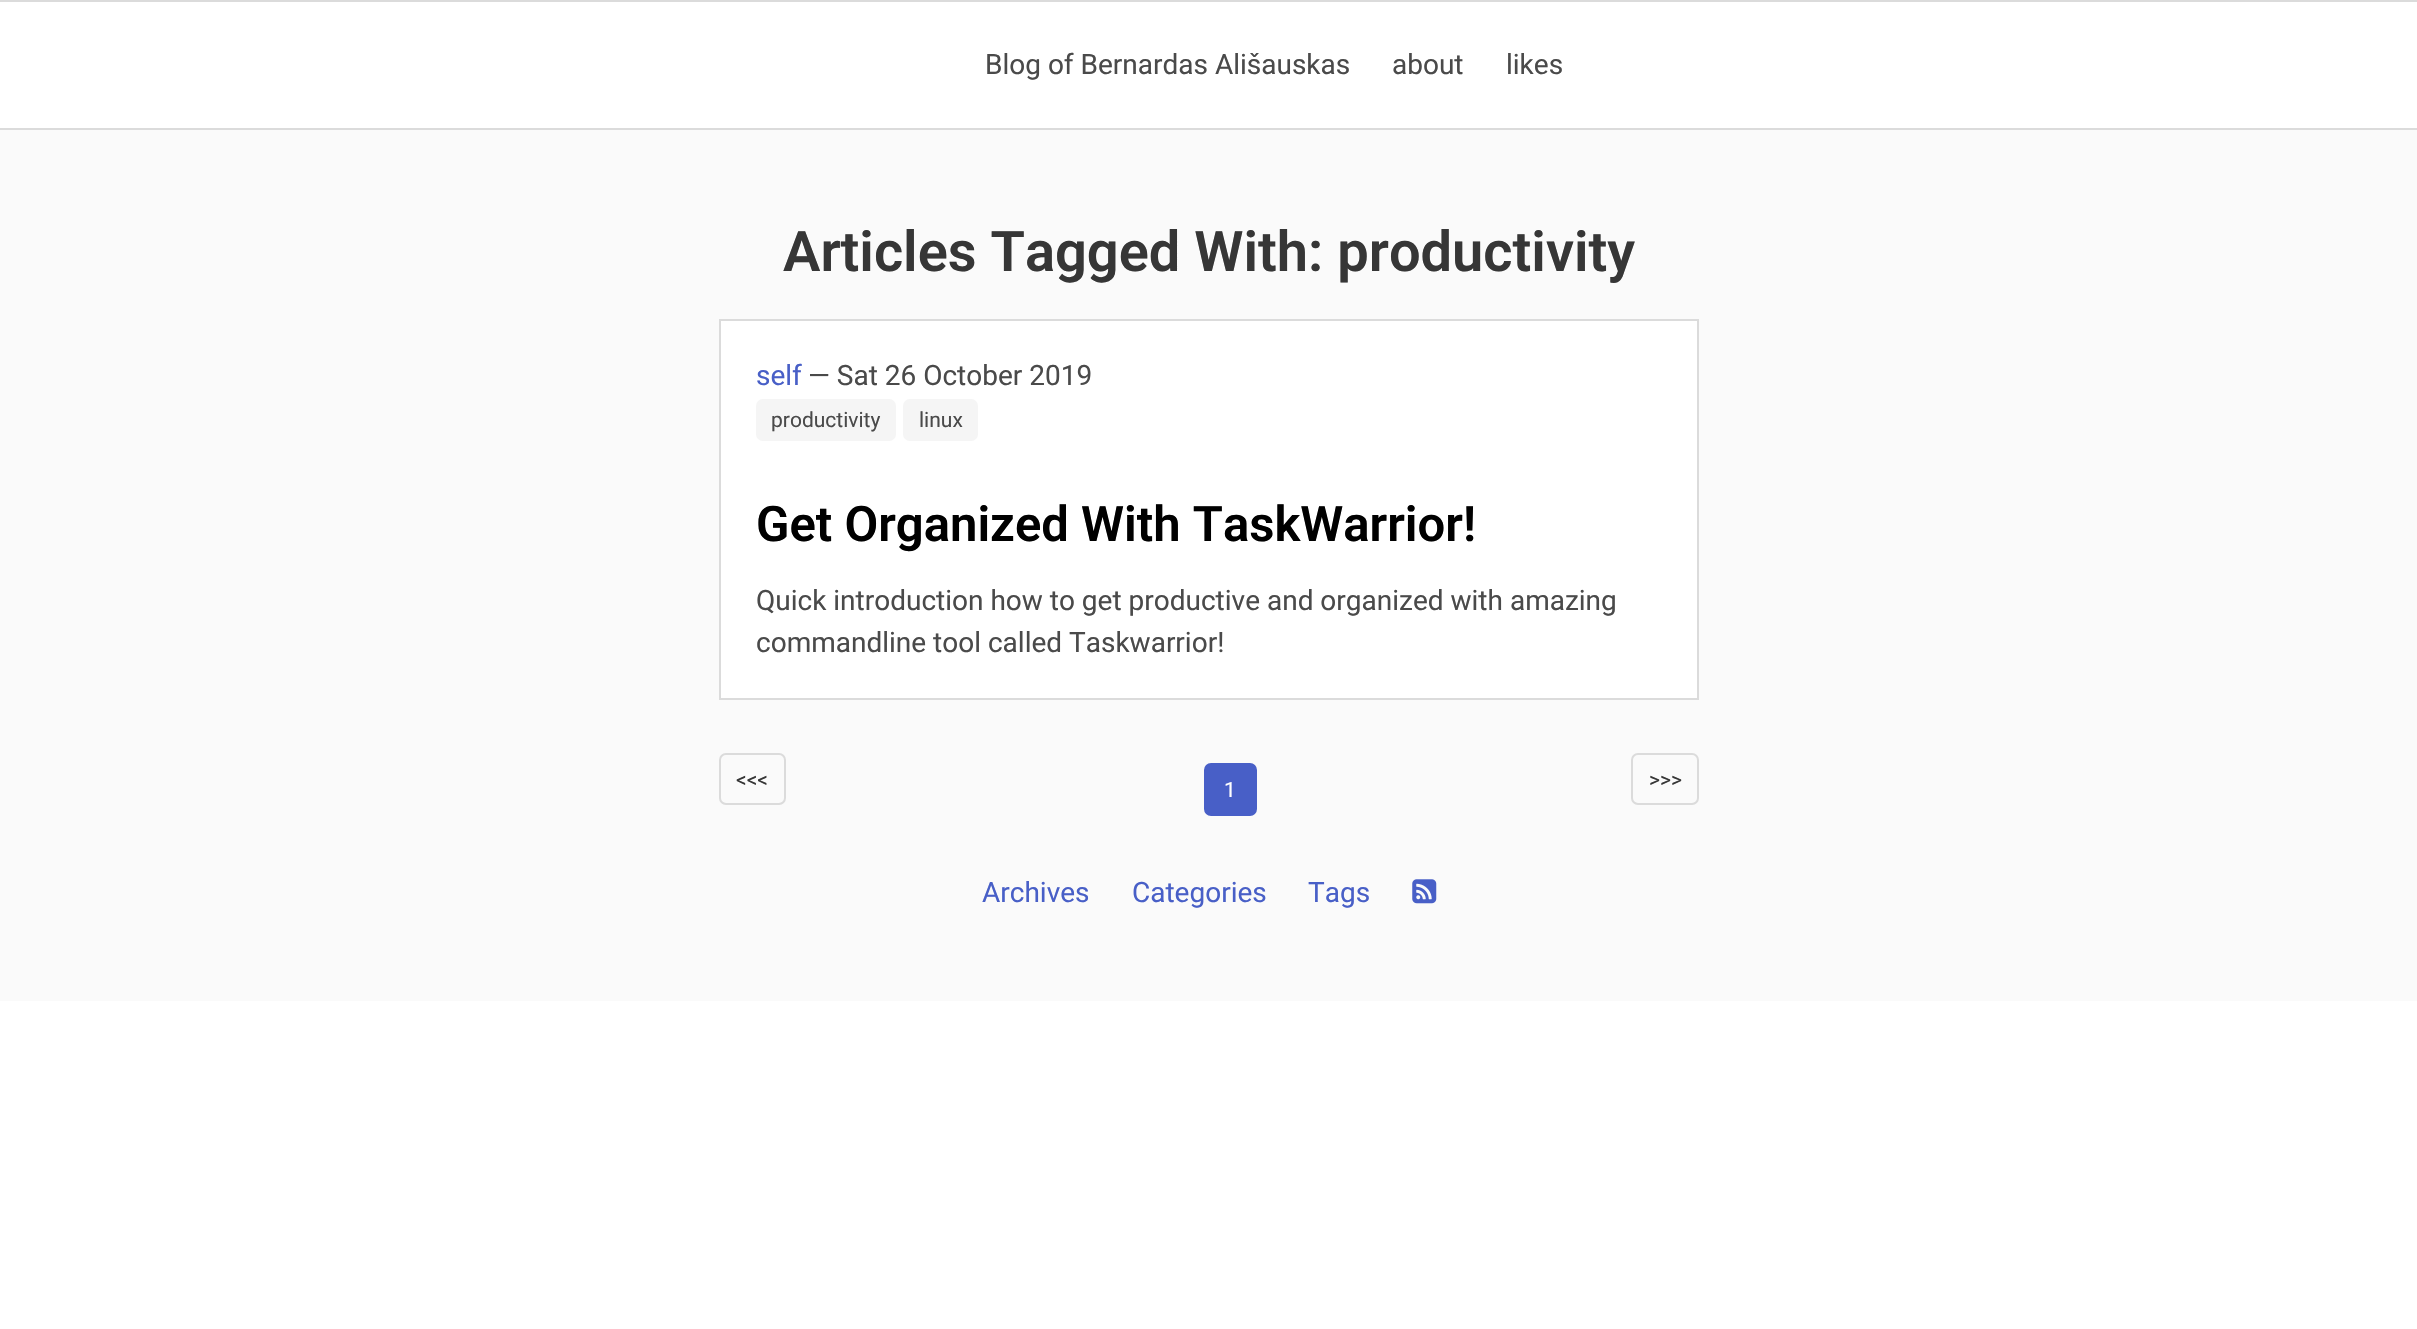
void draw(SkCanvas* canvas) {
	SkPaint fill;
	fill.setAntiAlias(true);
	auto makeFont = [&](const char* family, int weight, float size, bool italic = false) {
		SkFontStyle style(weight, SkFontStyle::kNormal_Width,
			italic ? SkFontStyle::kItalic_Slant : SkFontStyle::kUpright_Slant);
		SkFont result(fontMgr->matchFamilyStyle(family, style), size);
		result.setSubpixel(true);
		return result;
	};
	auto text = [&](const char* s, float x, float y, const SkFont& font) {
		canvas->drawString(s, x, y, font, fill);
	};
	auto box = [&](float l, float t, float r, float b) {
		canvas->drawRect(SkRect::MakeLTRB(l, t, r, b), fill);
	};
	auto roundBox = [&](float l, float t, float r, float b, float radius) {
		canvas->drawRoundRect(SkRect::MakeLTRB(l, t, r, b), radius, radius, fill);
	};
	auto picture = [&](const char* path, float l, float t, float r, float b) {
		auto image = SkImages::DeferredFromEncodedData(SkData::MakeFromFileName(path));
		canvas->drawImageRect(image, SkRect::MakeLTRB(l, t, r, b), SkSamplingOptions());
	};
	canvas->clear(0xFFFFFFFF);
	fill.setColor(0xFFFAFAFA);
	box(0, 130, 2417, 1001);
	fill.setStyle(SkPaint::kStroke_Style);
	fill.setStrokeWidth(2);
	fill.setColor(0xFFDBDBDB);
	canvas->drawRect(SkRect::MakeLTRB(-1, 1, 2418, 129), fill);
	fill.setStyle(SkPaint::kFill_Style);
	fill.setColor(0xFFFFFFFF);
	canvas->drawRect(SkRect::MakeLTRB(720, 320, 1698, 699), fill);
	fill.setStyle(SkPaint::kStroke_Style);
	fill.setColor(0xFFDBDBDB);
	canvas->drawRect(SkRect::MakeLTRB(720, 320, 1698, 699), fill);
	fill.setStyle(SkPaint::kFill_Style);
	fill.setColor(0xFFF5F5F5);
	roundBox(756, 399, 896, 441, 7);
	roundBox(903, 399, 978, 441, 7);
	fill.setStyle(SkPaint::kStroke_Style);
	fill.setColor(0xFFDBDBDB);
	canvas->drawRoundRect(SkRect::MakeLTRB(720, 754, 785, 804), 6, 6, fill);
	canvas->drawRoundRect(SkRect::MakeLTRB(1632, 754, 1698, 804), 6, 6, fill);
	fill.setStyle(SkPaint::kFill_Style);
	fill.setColor(0xFF485FC7);
	canvas->drawRoundRect(SkRect::MakeLTRB(1205, 764, 1256, 815), 6, 6, fill);
	fill.setStyle(SkPaint::kStroke_Style);
	canvas->drawRoundRect(SkRect::MakeLTRB(1205, 764, 1256, 815), 6, 6, fill);
	picture("image0.png", 1412, 879, 1437, 904);
	auto font1 = makeFont("Roboto", 400, 28);
	fill.setStyle(SkPaint::kFill_Style);
	fill.setColor(0xFF4A4A4A);
	text("Blog of Bernardas Ališauskas", 985, 74, font1);
	text("about", 1392, 74, font1);
	text("likes", 1506, 74, font1);
	auto font2 = makeFont("Roboto", 600, 56);
	fill.setColor(0xFF363636);
	text("Articles Tagged With: productivity", 783, 271, font2);
	fill.setColor(0xFF485FC7);
	text("self", 756, 385, font1);
	fill.setColor(0xFF4A4A4A);
	text("— Sat 26 October 2019", 808, 385, font1);
	auto font3 = makeFont("Roboto", 400, 21);
	text("productivity", 771, 427, font3);
	text("linux", 919, 427, font3);
	auto font4 = makeFont("Roboto", 600, 49);
	fill.setColor(0xFF000000);
	text("Get Organized With TaskWarrior!", 756, 541, font4);
	fill.setColor(0xFF4A4A4A);
	text("Quick introduction how to get productive and organized with amazing", 756, 610, font1);
	text("commandline tool called Taskwarrior!", 756, 652, font1);
	fill.setColor(0xFF363636);
	text("<<<", 736, 787, font3);
	text(">>>", 1649, 787, font3);
	fill.setColor(0xFFFFFFFF);
	text("1", 1224, 797, font3);
	fill.setColor(0xFF485FC7);
	text("Archives", 982, 902, font1);
	text("Categories", 1132, 902, font1);
	text("Tags", 1308, 902, font1);
}
